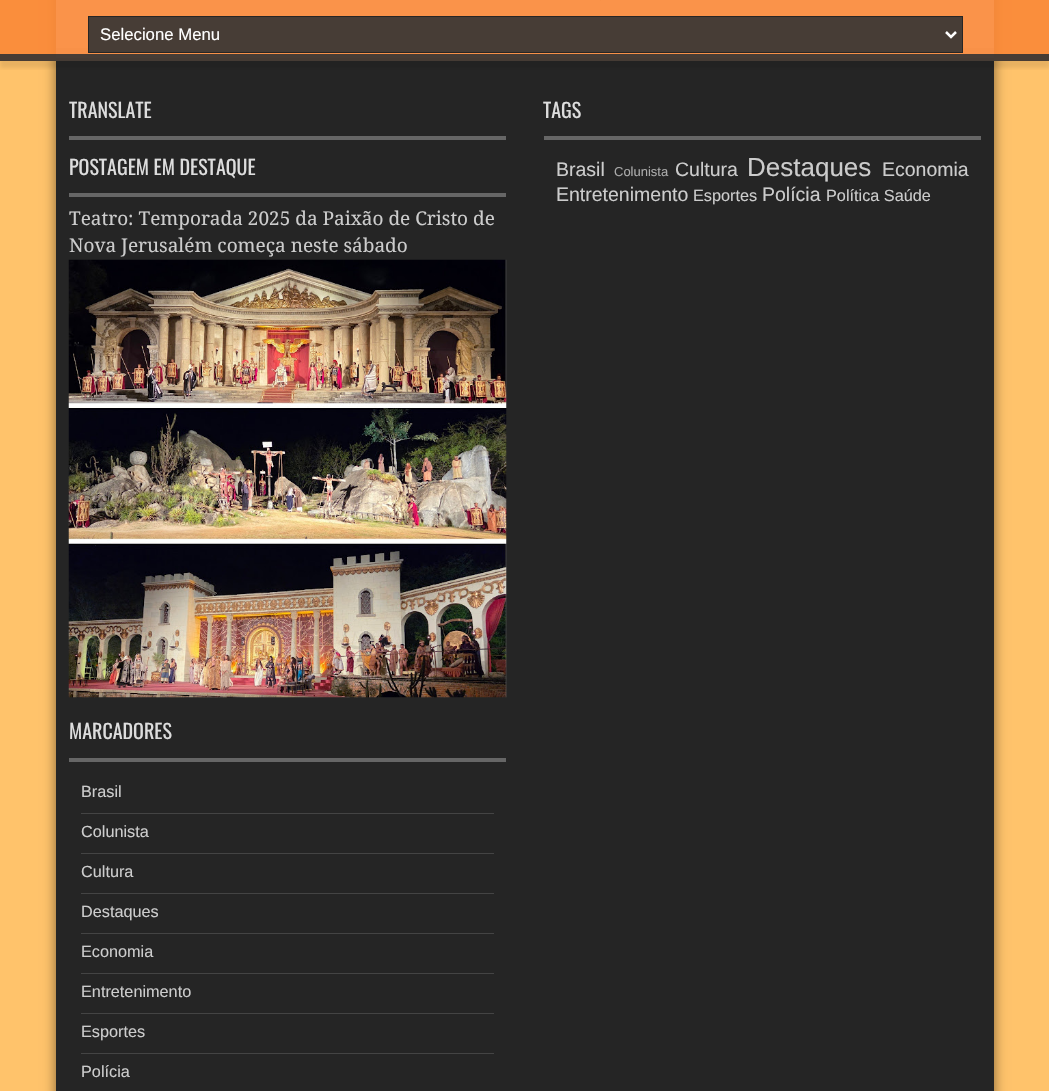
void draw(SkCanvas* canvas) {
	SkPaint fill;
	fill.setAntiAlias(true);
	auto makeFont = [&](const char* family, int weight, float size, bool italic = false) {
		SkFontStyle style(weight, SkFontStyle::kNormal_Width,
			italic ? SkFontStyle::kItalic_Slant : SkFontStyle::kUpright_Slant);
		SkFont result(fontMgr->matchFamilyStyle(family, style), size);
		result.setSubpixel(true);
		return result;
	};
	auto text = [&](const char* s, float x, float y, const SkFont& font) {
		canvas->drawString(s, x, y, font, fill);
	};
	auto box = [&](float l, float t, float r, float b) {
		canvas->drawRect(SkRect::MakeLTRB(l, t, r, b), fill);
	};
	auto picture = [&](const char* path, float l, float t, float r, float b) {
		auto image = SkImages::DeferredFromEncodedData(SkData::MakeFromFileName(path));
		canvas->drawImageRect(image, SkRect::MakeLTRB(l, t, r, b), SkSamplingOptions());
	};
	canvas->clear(0xFFFFC36B);
	fill.setColor(0x80000000);
	fill.setMaskFilter(SkMaskFilter::MakeBlur(kNormal_SkBlurStyle, 6));
	canvas->drawRect(SkRect::MakeLTRB(56, -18, 994, 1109), fill);
	fill.setMaskFilter(nullptr);
	fill.setColor(0xFFFFFFFF);
	box(56, 0, 994, 48);
	fill.setColor(0xFFEAEAEA);
	box(600, 0, 601, 1);
	fill.setColor(0xFFE6E6E6);
	canvas->drawPath(SkPathBuilder().moveTo(56, 48).lineTo(56, 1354).lineTo(56, 58).lineTo(994, 58).lineTo(994, 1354).lineTo(994, 48).close().detach(), fill);
	fill.setColor(0xFF252525);
	box(56, 58, 994, 1091);
	canvas->save();
	canvas->clipRect(SkRect::MakeLTRB(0, 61, 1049, 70));
	fill.setColor(0x17000000);
	fill.setMaskFilter(SkMaskFilter::MakeBlur(kNormal_SkBlurStyle, 2));
	canvas->drawRect(SkRect::MakeLTRB(0, 6, 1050, 68), fill);
	fill.setMaskFilter(nullptr);
	canvas->restore();
	fill.setColor(0xE6FA8736);
	box(0, 0, 1049, 61);
	fill.setColor(0xE6333333);
	box(0, 54, 1049, 61);
	canvas->drawRect(SkRect::MakeLTRB(88.5f, 16.5f, 962.5f, 52.5f), fill);
	fill.setStyle(SkPaint::kStroke_Style);
	fill.setStrokeWidth(1);
	fill.setColor(0xFF272625);
	canvas->drawRect(SkRect::MakeLTRB(88.5f, 16.5f, 962.5f, 52.5f), fill);
	fill.setStrokeWidth(2.5f);
	fill.setColor(0xFFFFFFFF);
	canvas->drawPath(SkPathBuilder().moveTo(946, 32).lineTo(951, 37).lineTo(956, 32).detach(), fill);
	fill.setStyle(SkPaint::kFill_Style);
	fill.setColor(0xFF666666);
	box(69, 136, 506, 140);
	box(69, 193, 506, 197);
	picture("image0.png", 68, 259, 507, 698);
	box(69, 758, 506, 762);
	fill.setColor(0xFF444444);
	box(81, 813, 494, 814);
	box(81, 853, 494, 854);
	box(81, 893, 494, 894);
	box(81, 933, 494, 934);
	box(81, 973, 494, 974);
	box(81, 1013, 494, 1014);
	box(81, 1053, 494, 1054);
	fill.setColor(0xFF666666);
	box(544, 136, 981, 140);
	auto font1 = makeFont("Liberation Sans", 400, 16.75f);
	fill.setColor(0xFFFFFFFF);
	text("Selecione Menu", 100, 40, font1);
	auto font2 = makeFont("Oswald", 400, 20);
	fill.setColor(0xFFDDDDDD);
	text("TRANSLATE", 69, 118, font2);
	text("POSTAGEM EM DESTAQUE", 69, 175, font2);
	auto font3 = makeFont("Droid Serif", 400, 19);
	fill.setColor(0xFFCCCCCC);
	text("Teatro: Temporada 2025 da Paixão de Cristo de", 69, 225, font3);
	text("Nova Jerusalém começa neste sábado", 69, 252, font3);
	fill.setColor(0xFFDDDDDD);
	text("MARCADORES", 69, 739, font2);
	auto font4 = makeFont("Liberation Sans", 400, 16.25f);
	fill.setColor(0xFFCCCCCC);
	text("Brasil", 81, 797, font4);
	text("Colunista", 81, 837, font4);
	text("Cultura", 81, 877, font4);
	text("Destaques", 81, 917, font4);
	text("Economia", 81, 957, font4);
	text("Entretenimento", 81, 997, font4);
	text("Esportes", 81, 1037, font4);
	text("Polícia", 81, 1077, font4);
	fill.setColor(0xFFDDDDDD);
	text("TAGS", 543, 118, font2);
	auto font5 = makeFont("Liberation Sans", 400, 19.5f);
	fill.setColor(0xFFCCCCCC);
	text("Brasil", 556, 176, font5);
	auto font6 = makeFont("Liberation Sans", 400, 13);
	fill.setColor(0xFFABABAB);
	text("Colunista", 614, 176, font6);
	fill.setColor(0xFFCCCCCC);
	text("Cultura", 675, 176, font5);
	auto font7 = makeFont("Liberation Sans", 400, 26);
	text("Destaques", 747, 176, font7);
	text("Economia", 882, 176, font5);
	text("Entretenimento", 556, 201, font5);
	text("Esportes", 693, 201, font4);
	text("Polícia", 762, 201, font5);
	text("Política Saúde", 826, 201, font4);
}
